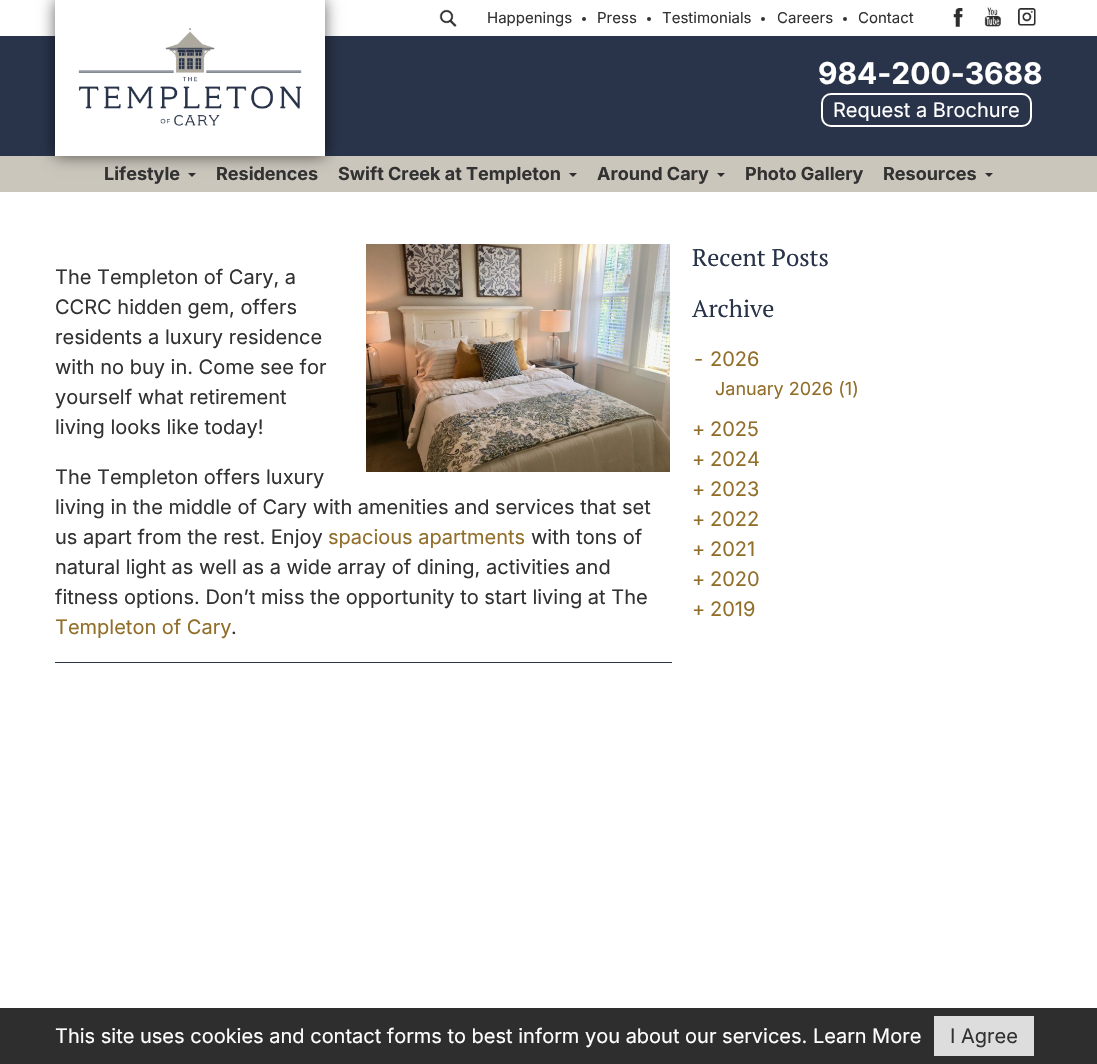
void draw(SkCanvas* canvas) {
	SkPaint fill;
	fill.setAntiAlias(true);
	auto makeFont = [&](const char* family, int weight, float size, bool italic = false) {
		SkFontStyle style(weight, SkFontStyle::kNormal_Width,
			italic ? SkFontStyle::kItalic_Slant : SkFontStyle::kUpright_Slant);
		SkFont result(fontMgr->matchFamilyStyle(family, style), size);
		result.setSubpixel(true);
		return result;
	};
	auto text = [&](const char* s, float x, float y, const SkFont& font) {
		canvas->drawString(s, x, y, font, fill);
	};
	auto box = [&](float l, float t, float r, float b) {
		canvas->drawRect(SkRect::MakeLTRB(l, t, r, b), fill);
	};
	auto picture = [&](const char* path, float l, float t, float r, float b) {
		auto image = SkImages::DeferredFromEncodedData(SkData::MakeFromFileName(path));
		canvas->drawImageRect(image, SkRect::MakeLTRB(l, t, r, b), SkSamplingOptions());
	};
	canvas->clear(0xFFFFFFFF);
	picture("image0.png", 439, 9, 457, 27);
	fill.setColor(0xFF323232);
	canvas->drawCircle(584, 19, 2, fill);
	canvas->drawCircle(649, 19, 2, fill);
	canvas->drawCircle(763, 19, 2, fill);
	canvas->drawCircle(845, 19, 2, fill);
	picture("image1.png", 953, 8, 963, 27);
	picture("image2.png", 984, 7, 1001, 27);
	picture("image3.png", 1018, 8, 1036, 26);
	fill.setColor(0xFF29344A);
	box(0, 36, 1097, 156);
	fill.setColor(0xFFCBC6BC);
	box(0, 156, 1097, 192);
	fill.setColor(0x99000000);
	fill.setMaskFilter(SkMaskFilter::MakeBlur(kNormal_SkBlurStyle, 7.5f));
	canvas->drawRect(SkRect::MakeLTRB(55, 0, 325, 156), fill);
	fill.setMaskFilter(nullptr);
	fill.setColor(0xFFFFFFFF);
	box(55, 0, 325, 156);
	picture("image4.png", 78, 27, 302, 126);
	fill.setStyle(SkPaint::kStroke_Style);
	fill.setStrokeWidth(2);
	canvas->drawRoundRect(SkRect::MakeLTRB(822, 94, 1031, 126), 9, 9, fill);
	fill.setStyle(SkPaint::kFill_Style);
	fill.setColor(0xFF2E2E2E);
	canvas->drawPath(SkPathBuilder().moveTo(188, 173).lineTo(196, 173).lineTo(192, 177).close().detach(), fill);
	canvas->drawPath(SkPathBuilder().moveTo(569, 173).lineTo(577, 173).lineTo(573, 177).close().detach(), fill);
	canvas->drawPath(SkPathBuilder().moveTo(717, 173).lineTo(725, 173).lineTo(721, 177).close().detach(), fill);
	canvas->drawPath(SkPathBuilder().moveTo(985, 173).lineTo(993, 173).lineTo(989, 177).close().detach(), fill);
	box(0, 1008, 1097, 1064);
	fill.setColor(0xFFDDDDDD);
	box(934, 1016, 1034, 1056);
	picture("image5.png", 366, 244, 670, 472);
	fill.setColor(0xFF29344A);
	box(55, 662, 672, 663);
	auto font1 = makeFont("Inter", 400, 15);
	fill.setColor(0xFF323232);
	text("Happenings", 487, 23, font1);
	text("Press", 597, 23, font1);
	text("Testimonials", 662, 23, font1);
	text("Careers", 777, 23, font1);
	text("Contact", 858, 23, font1);
	auto font2 = makeFont("Inter", 700, 30);
	fill.setColor(0xFFFFFFFF);
	text("984-200-3688", 818, 84, font2);
	auto font3 = makeFont("Inter", 400, 20);
	text("Request a Brochure", 833, 117, font3);
	auto font4 = makeFont("Inter", 700, 18);
	fill.setColor(0xFF323232);
	text("Lifestyle", 104, 180, font4);
	text("Residences", 216, 180, font4);
	text("Swift Creek at Templeton", 338, 180, font4);
	text("Around Cary", 597, 180, font4);
	text("Photo Gallery", 745, 180, font4);
	text("Resources", 883, 180, font4);
	fill.setColor(0xFFFFFFFF);
	text("This site uses cookies and contact forms to best inform you about our services. Learn More", 55, 1043, font3);
	fill.setColor(0xFF323232);
	text("I Agree", 950, 1043, font3);
	text("The Templeton of Cary, a", 55, 284, font3);
	text("CCRC hidden gem, offers", 55, 314, font3);
	text("residents a luxury residence", 55, 344, font3);
	text("with no buy in. Come see for", 55, 374, font3);
	text("yourself what retirement", 55, 404, font3);
	text("living looks like today!", 55, 434, font3);
	text("The Templeton offers luxury", 55, 484, font3);
	text("living in the middle of Cary with amenities and services that set", 55, 514, font3);
	text("us apart from the rest. Enjoy", 55, 544, font3);
	fill.setColor(0xFF916E29);
	text("spacious apartments", 328, 544, font3);
	fill.setColor(0xFF323232);
	text("with tons of", 531, 544, font3);
	text("natural light as well as a wide array of dining, activities and", 55, 574, font3);
	text("fitness options. Don’t miss the opportunity to start living at The", 55, 604, font3);
	fill.setColor(0xFF916E29);
	text("Templeton of Cary", 55, 634, font3);
	fill.setColor(0xFF323232);
	text(".", 231, 634, font3);
	auto font5 = makeFont("PT Serif", 400, 24);
	fill.setColor(0xFF29344A);
	text("Recent Posts", 692, 266, font5);
	text("Archive", 692, 317, font5);
	fill.setColor(0xFF916E29);
	text("-", 694, 366, font3);
	text("2026", 710, 366, font3);
	auto font6 = makeFont("Inter", 400, 18);
	text("January 2026 (1)", 715, 395, font6);
	text("+", 692, 436, font3);
	text("2025", 710, 436, font3);
	text("+", 692, 466, font3);
	text("2024", 710, 466, font3);
	text("+", 692, 496, font3);
	text("2023", 710, 496, font3);
	text("+", 692, 526, font3);
	text("2022", 710, 526, font3);
	text("+", 692, 556, font3);
	text("2021", 710, 556, font3);
	text("+", 692, 586, font3);
	text("2020", 710, 586, font3);
	text("+", 692, 616, font3);
	text("2019", 710, 616, font3);
}
